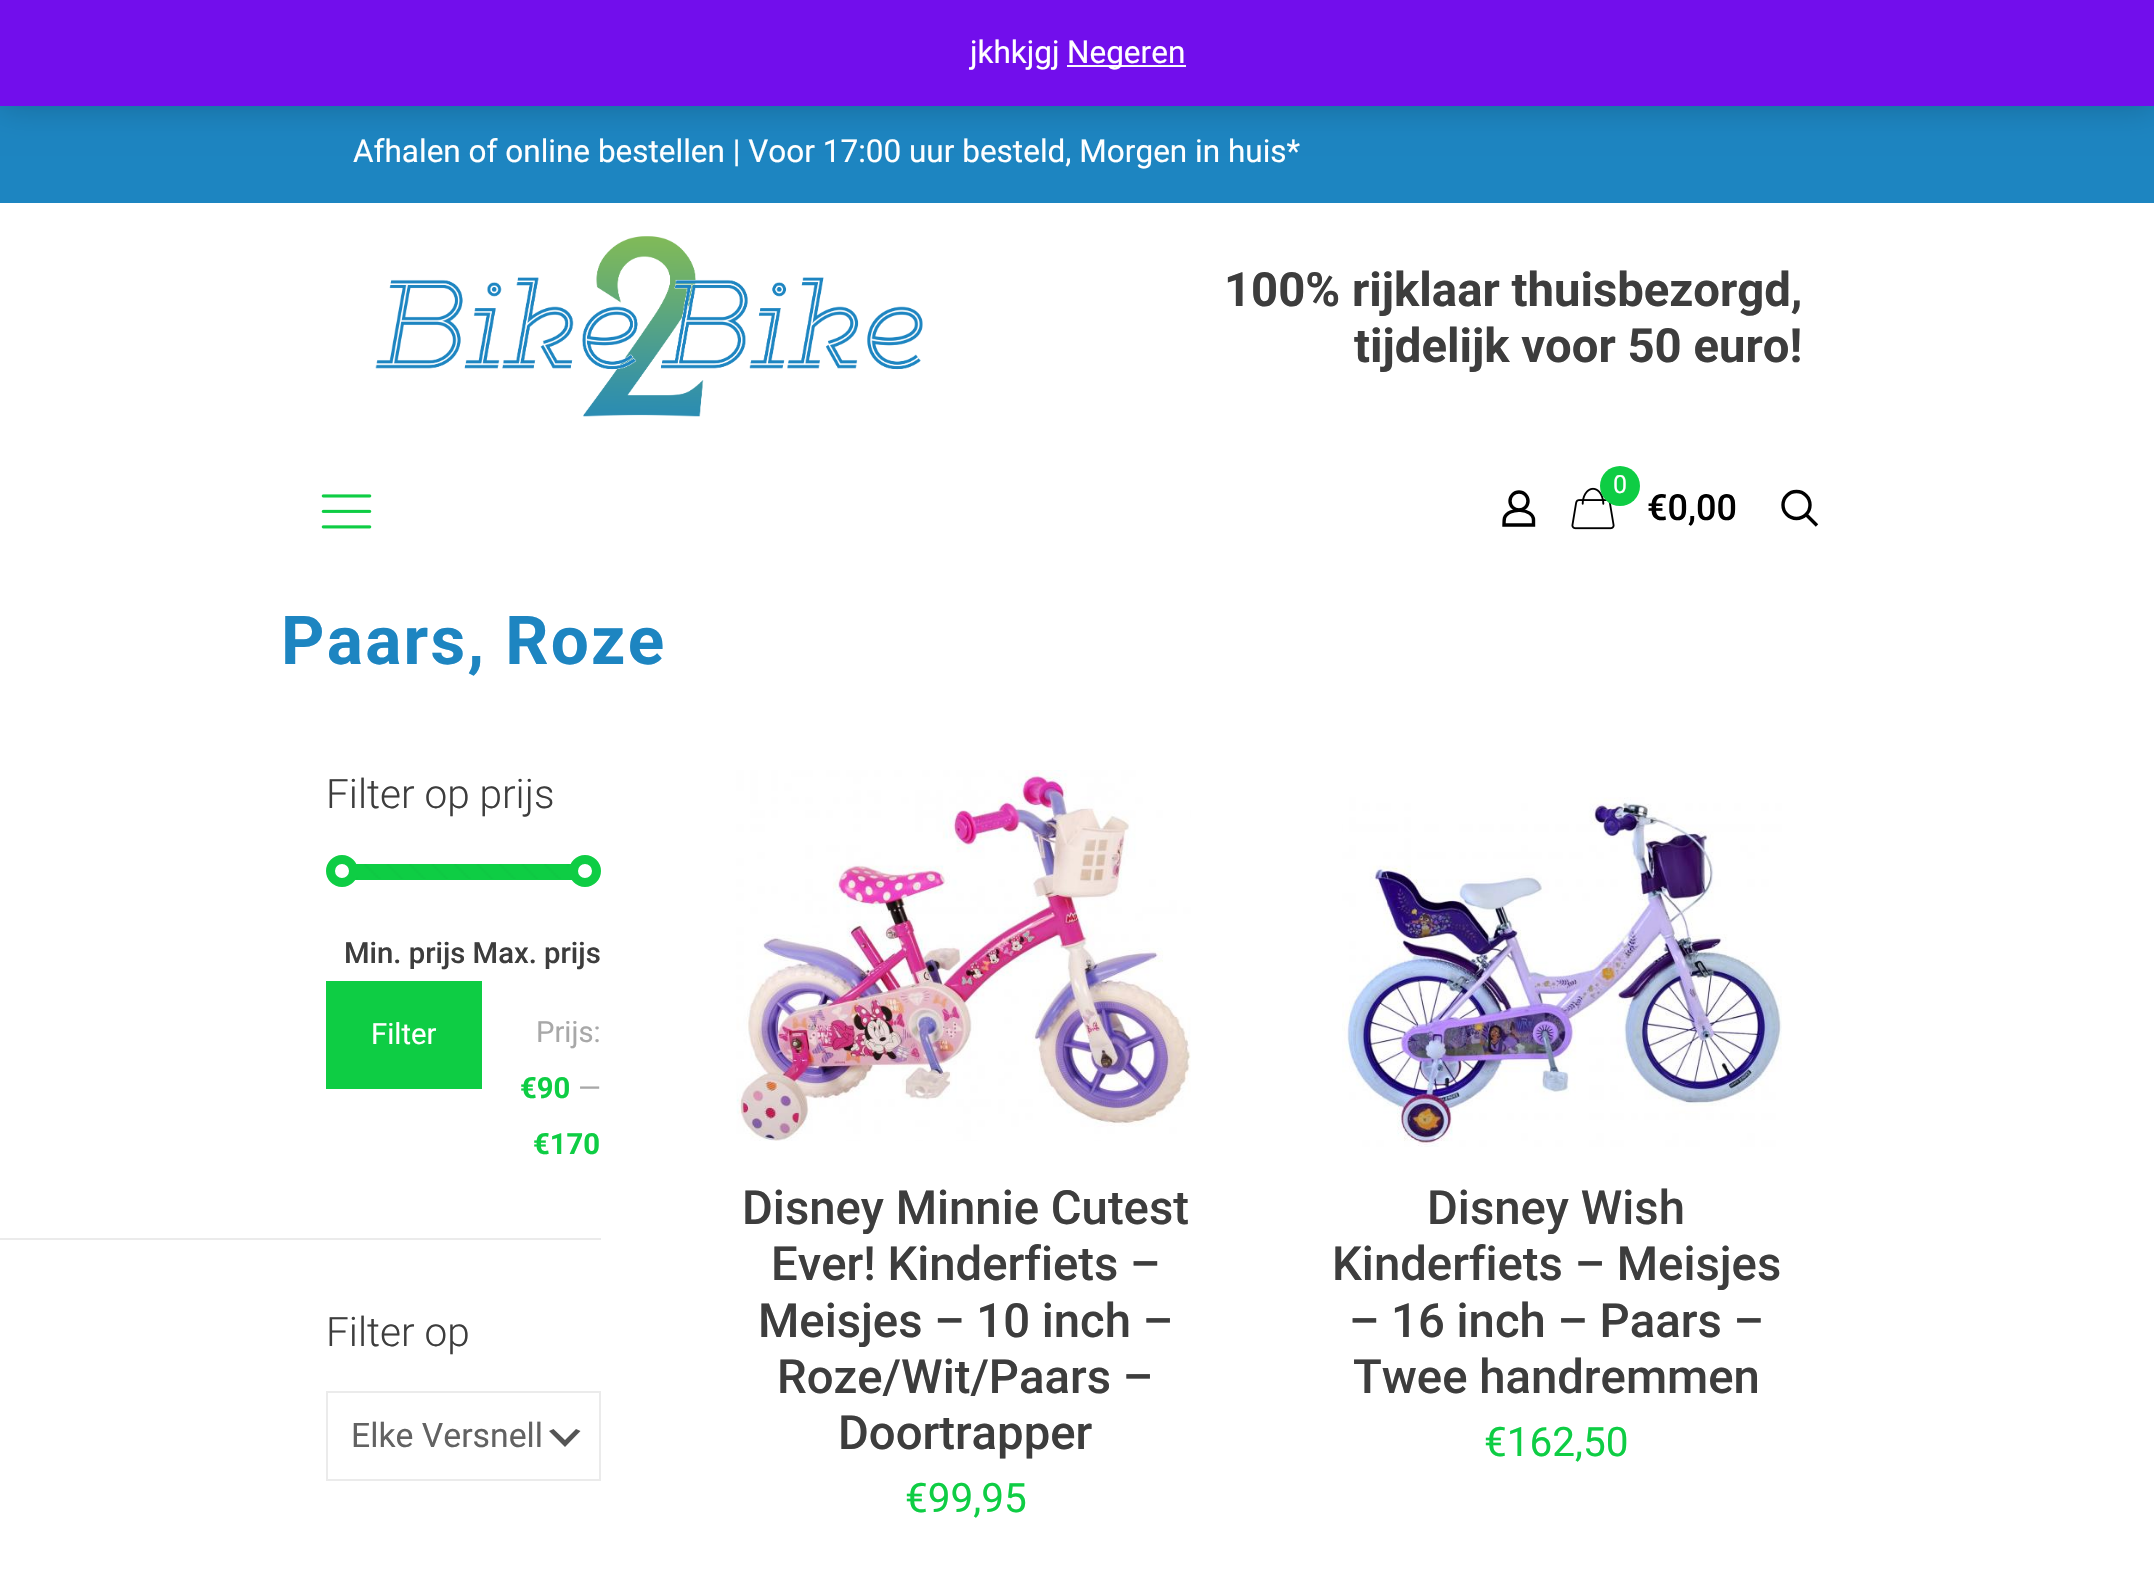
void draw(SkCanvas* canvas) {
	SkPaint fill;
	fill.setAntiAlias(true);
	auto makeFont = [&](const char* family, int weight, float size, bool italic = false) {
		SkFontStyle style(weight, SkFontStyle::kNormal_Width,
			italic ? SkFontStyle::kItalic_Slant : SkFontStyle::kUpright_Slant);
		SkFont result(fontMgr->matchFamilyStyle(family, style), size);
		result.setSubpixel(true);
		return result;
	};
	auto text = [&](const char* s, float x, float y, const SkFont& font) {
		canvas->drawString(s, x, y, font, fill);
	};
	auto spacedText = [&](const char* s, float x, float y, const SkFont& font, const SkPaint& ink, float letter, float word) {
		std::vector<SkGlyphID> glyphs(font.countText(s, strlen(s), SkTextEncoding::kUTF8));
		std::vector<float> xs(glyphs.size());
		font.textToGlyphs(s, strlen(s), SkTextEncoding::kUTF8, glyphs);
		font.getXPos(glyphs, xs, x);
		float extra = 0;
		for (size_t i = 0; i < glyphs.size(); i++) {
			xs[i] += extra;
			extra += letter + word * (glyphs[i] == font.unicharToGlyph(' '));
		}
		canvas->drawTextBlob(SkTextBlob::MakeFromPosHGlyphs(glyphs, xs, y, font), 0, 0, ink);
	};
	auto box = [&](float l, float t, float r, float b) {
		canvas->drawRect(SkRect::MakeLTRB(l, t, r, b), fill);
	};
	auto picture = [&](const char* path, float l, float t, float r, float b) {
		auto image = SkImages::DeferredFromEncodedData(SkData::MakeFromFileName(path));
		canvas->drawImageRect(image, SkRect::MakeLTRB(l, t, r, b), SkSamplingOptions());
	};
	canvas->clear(0xFFFFFFFF);
	fill.setColor(0xFF1D85C1);
	box(0, 106, 2154, 203);
	fill.setColor(0x33000000);
	fill.setMaskFilter(SkMaskFilter::MakeBlur(kNormal_SkBlurStyle, 16));
	canvas->drawRect(SkRect::MakeLTRB(0, 2, 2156, 108), fill);
	fill.setMaskFilter(nullptr);
	fill.setColor(0xFF720EEC);
	box(0, 0, 2154, 106);
	fill.setColor(0xFFFCFBFE);
	box(1067, 65, 1186, 67);
	picture("image0.png", 375, 236, 923, 417);
	picture("image1.png", 321, 494, 372, 529);
	fill.setStyle(SkPaint::kStroke_Style);
	fill.setStrokeWidth(3.4f);
	fill.setColor(0xFF000000);
	canvas->drawCircle(1519, 501, 9, fill);
	canvas->drawPath(SkPathBuilder().moveTo(1533.5f, 520).lineTo(1533.5f, 525).lineTo(1504, 525).cubicTo(1504, 523, 1504, 520, 1504.5f, 518).cubicTo(1508, 507, 1533.5f, 508, 1533.5f, 520).close().detach(), fill);
	picture("image2.png", 1571, 487, 1615, 530);
	fill.setStyle(SkPaint::kFill_Style);
	fill.setColor(0xFF0ECD44);
	canvas->drawCircle(1620, 486, 20, fill);
	fill.setStyle(SkPaint::kStroke_Style);
	fill.setColor(0xFF000000);
	canvas->drawCircle(1796.5f, 505, 13.5f, fill);
	canvas->drawPath(SkPathBuilder().moveTo(1806, 514.5f).lineTo(1817, 525.5f).detach(), fill);
	fill.setStyle(SkPaint::kFill_Style);
	fill.setColor(0xFF0ECD44);
	box(355, 864, 572, 880);
	picture("image3.png", 356, 864, 569, 879);
	fill.setColor(0xFFFFFFFF);
	canvas->drawCircle(342, 871, 11.5f, fill);
	fill.setStyle(SkPaint::kStroke_Style);
	fill.setStrokeWidth(9);
	fill.setColor(0xFF0ECD44);
	canvas->drawCircle(342, 871, 11.5f, fill);
	fill.setStyle(SkPaint::kFill_Style);
	fill.setColor(0xFFFFFFFF);
	canvas->drawCircle(585, 871, 11.5f, fill);
	fill.setStyle(SkPaint::kStroke_Style);
	fill.setColor(0xFF0ECD44);
	canvas->drawCircle(585, 871, 11.5f, fill);
	fill.setStyle(SkPaint::kFill_Style);
	box(326, 981, 482, 1089);
	fill.setColor(0xFFEBEBEB);
	box(0, 1238, 601, 1240);
	fill.setColor(0xFF555555);
	canvas->drawPath(SkPathBuilder().moveTo(553.5f, 1429).lineTo(565, 1440).lineTo(576, 1429).lineTo(580.5f, 1431).lineTo(565, 1447).lineTo(549, 1431).close().detach(), fill);
	fill.setStyle(SkPaint::kStroke_Style);
	fill.setStrokeWidth(2);
	fill.setColor(0xFFEBEBEB);
	canvas->drawRect(SkRect::MakeLTRB(327, 1392, 600, 1480), fill);
	picture("image4.png", 736, 770, 1191, 1141);
	picture("image5.png", 1342, 797, 1782, 1147);
	auto font1 = makeFont("Roboto", 400, 31.5f);
	fill.setStyle(SkPaint::kFill_Style);
	fill.setColor(0xFFFFFFFF);
	text("jkhkjgj", 970, 63, font1);
	text("Negeren", 1067, 63, font1);
	text("Afhalen of online bestellen | Voor 17:00 uur besteld, Morgen in huis*", 353, 162, font1);
	auto font2 = makeFont("Roboto", 700, 47.25f);
	fill.setColor(0xFF3D3D3D);
	text("100% rijklaar thuisbezorgd,", 1224, 306, font2);
	text("tijdelijk voor 50 euro!", 1354, 362, font2);
	auto font3 = makeFont("Roboto", 400, 25);
	fill.setColor(0xFFFFFFFF);
	text("0", 1613, 493, font3);
	auto font4 = makeFont("Roboto", 500, 36);
	fill.setColor(0xFF000000);
	text("€0,00", 1647, 520, font4);
	auto font5 = makeFont("Roboto", 700, 67.5f);
	fill.setColor(0xFF1D85C1);
	spacedText("Paars, Roze", 281, 664, font5, fill, 2.25f, 0);
	auto font6 = makeFont("Roboto", 300, 40.5f);
	fill.setColor(0xFF3D3D3D);
	text("Filter op prijs", 326, 808, font6);
	auto font7 = makeFont("Roboto", 500, 29.25f);
	text("Min. prijs Max. prijs", 344, 963, font7);
	auto font8 = makeFont("Roboto", 400, 29.25f);
	fill.setColor(0xFFFFFFFF);
	text("Filter", 371, 1044, font8);
	fill.setColor(0xFFA8A8A8);
	text("Prijs:", 536, 1042, font8);
	auto font9 = makeFont("Roboto", 700, 29.25f);
	fill.setColor(0xFF0ECD44);
	text("€90", 520, 1098, font9);
	fill.setColor(0xFFA8A8A8);
	text("—", 578, 1098, font8);
	fill.setColor(0xFF0ECD44);
	text("€170", 533, 1154, font9);
	fill.setColor(0xFF3D3D3D);
	text("Filter op", 326, 1346, font6);
	auto font10 = makeFont("Roboto", 400, 33.75f);
	fill.setColor(0xFF626262);
	text("Elke Versnell", 351, 1447, font10);
	auto font11 = makeFont("Roboto", 500, 47.25f);
	fill.setColor(0xFF3D3D3D);
	text("Disney Minnie Cutest", 742, 1224, font11);
	text("Ever! Kinderfiets –", 771, 1280, font11);
	text("Meisjes – 10 inch –", 758, 1337, font11);
	text("Roze/Wit/Paars –", 777, 1393, font11);
	text("Doortrapper", 838, 1449, font11);
	auto font12 = makeFont("Roboto", 400, 40.5f);
	fill.setColor(0xFF0ECD44);
	text("€99,95", 905, 1512, font12);
	fill.setColor(0xFF3D3D3D);
	text("Disney Wish", 1427, 1224, font11);
	text("Kinderfiets – Meisjes", 1332, 1280, font11);
	text("– 16 inch – Paars –", 1349, 1337, font11);
	text("Twee handremmen", 1353, 1393, font11);
	fill.setColor(0xFF0ECD44);
	text("€162,50", 1484, 1456, font12);
}
